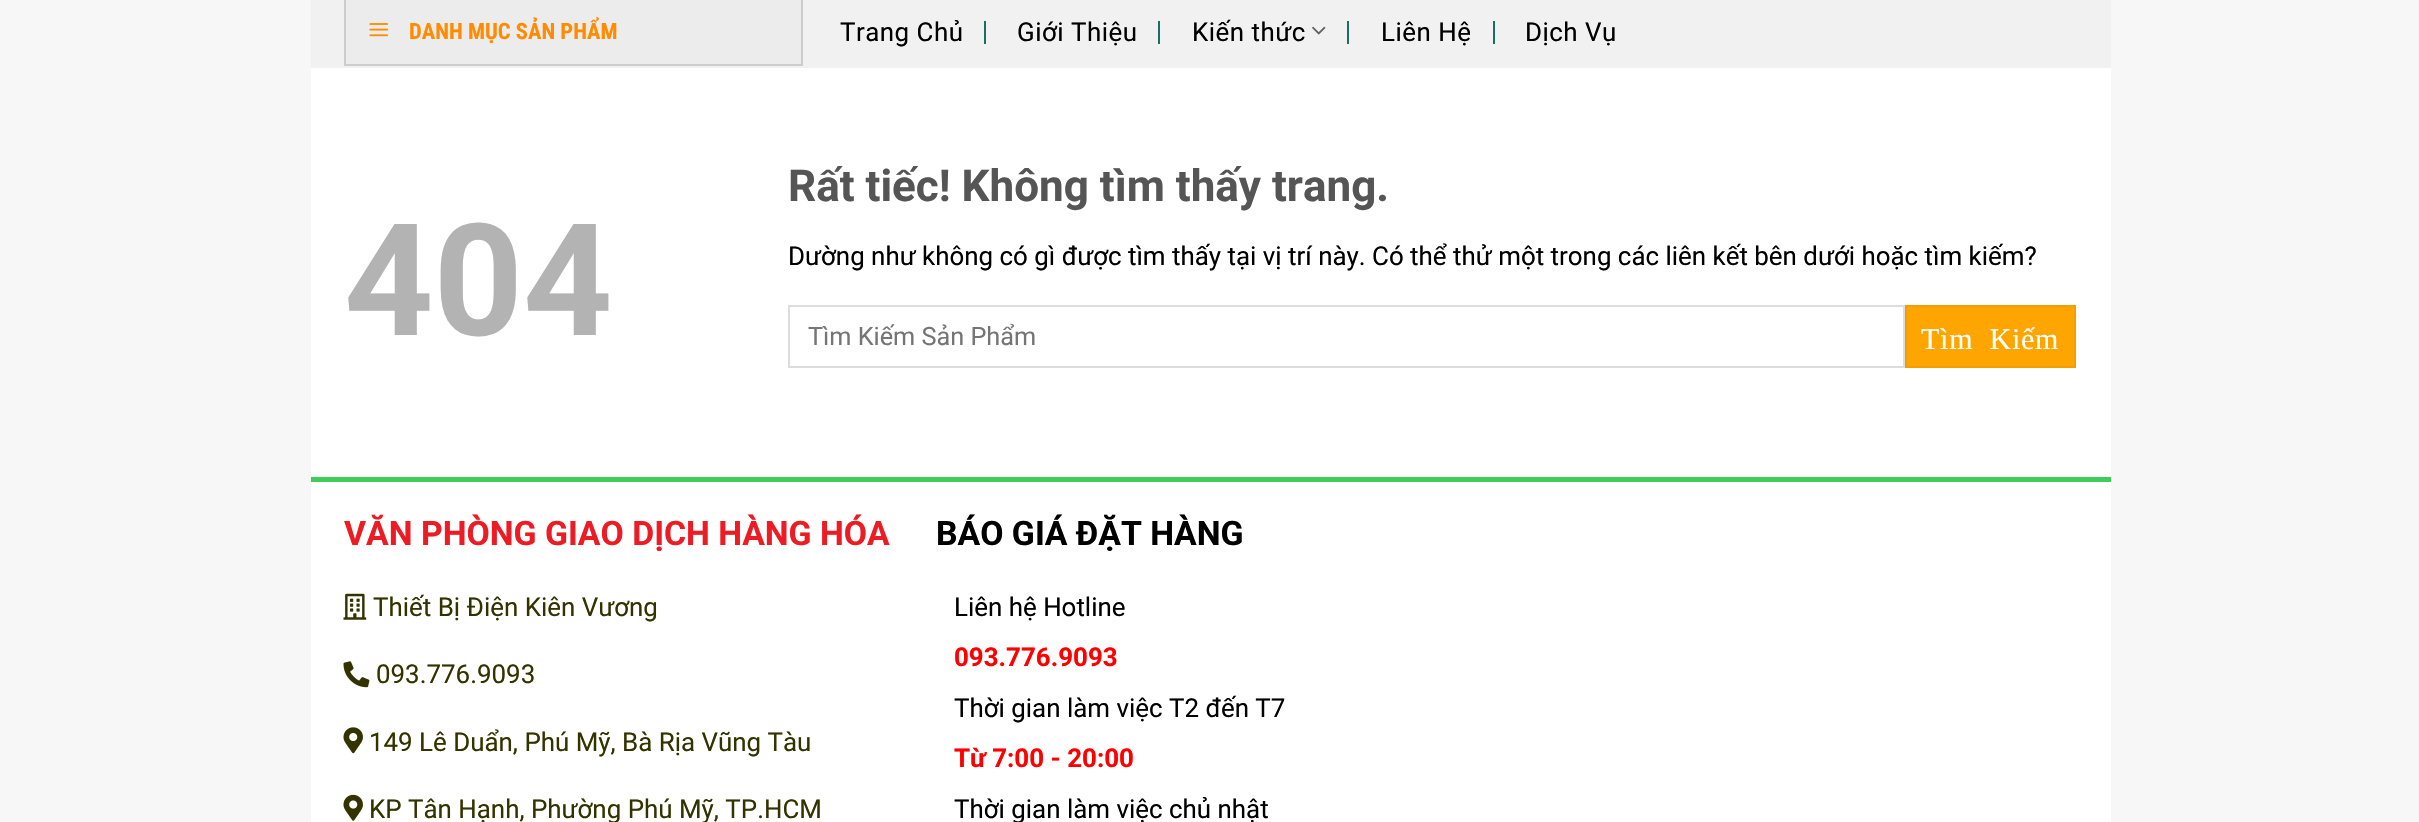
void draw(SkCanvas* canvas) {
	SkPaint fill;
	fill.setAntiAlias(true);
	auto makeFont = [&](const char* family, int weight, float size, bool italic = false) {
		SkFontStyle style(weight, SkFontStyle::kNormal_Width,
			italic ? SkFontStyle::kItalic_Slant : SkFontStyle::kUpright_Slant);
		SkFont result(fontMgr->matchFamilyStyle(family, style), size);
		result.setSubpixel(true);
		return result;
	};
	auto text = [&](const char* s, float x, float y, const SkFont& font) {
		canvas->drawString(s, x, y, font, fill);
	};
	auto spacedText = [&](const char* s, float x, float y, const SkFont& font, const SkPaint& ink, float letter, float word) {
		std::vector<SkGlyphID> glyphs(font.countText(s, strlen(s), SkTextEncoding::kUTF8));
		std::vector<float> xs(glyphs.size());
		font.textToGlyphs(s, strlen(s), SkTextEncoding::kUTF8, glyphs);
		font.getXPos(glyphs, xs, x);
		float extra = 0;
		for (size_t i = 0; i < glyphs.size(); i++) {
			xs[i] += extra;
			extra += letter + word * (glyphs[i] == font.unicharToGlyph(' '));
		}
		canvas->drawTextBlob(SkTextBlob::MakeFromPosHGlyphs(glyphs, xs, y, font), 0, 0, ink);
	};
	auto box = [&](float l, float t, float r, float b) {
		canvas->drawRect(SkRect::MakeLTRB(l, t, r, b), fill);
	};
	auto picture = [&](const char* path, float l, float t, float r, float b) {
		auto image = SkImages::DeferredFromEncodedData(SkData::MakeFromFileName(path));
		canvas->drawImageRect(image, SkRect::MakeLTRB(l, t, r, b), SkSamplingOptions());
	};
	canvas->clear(0xFFF7F7F7);
	fill.setColor(0xFFFFFFFF);
	box(311, 68, 2111, 822);
	fill.setColor(0xFFF1F1F1);
	box(311, 0, 2111, 68);
	fill.setColor(0xFFECECEC);
	canvas->drawRect(SkRect::MakeLTRB(345, -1, 802, 65), fill);
	fill.setStyle(SkPaint::kStroke_Style);
	fill.setStrokeWidth(2);
	fill.setColor(0xFFCCCCCC);
	canvas->drawRect(SkRect::MakeLTRB(345, -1, 802, 65), fill);
	picture("image0.png", 369, 23, 389, 37);
	fill.setStyle(SkPaint::kFill_Style);
	fill.setColor(0xFF1A6E66);
	box(984, 21, 986, 44);
	box(1158, 21, 1160, 44);
	picture("image1.png", 1312, 26, 1326, 35);
	box(1347, 21, 1349, 44);
	box(1493, 21, 1495, 44);
	fill.setStyle(SkPaint::kStroke_Style);
	fill.setColor(0xFFDDDDDD);
	canvas->drawRect(SkRect::MakeLTRB(789, 306, 1904, 367), fill);
	fill.setStyle(SkPaint::kFill_Style);
	fill.setColor(0xFFFFA500);
	canvas->drawRect(SkRect::MakeLTRB(1906, 306, 2075, 367), fill);
	fill.setStyle(SkPaint::kStroke_Style);
	fill.setColor(0xFFF29D00);
	canvas->drawRect(SkRect::MakeLTRB(1906, 306, 2075, 367), fill);
	fill.setStyle(SkPaint::kFill_Style);
	fill.setColor(0xFF3DCD58);
	box(311, 477, 2111, 482);
	picture("image2.png", 343, 593, 367, 620);
	picture("image3.png", 343, 661, 370, 688);
	picture("image4.png", 343, 727, 363, 754);
	picture("image5.png", 343, 794, 363, 821);
	auto font1 = makeFont("Roboto Condensed", 700, 22.5f);
	fill.setColor(0xFFFF8C00);
	text("DANH MỤC SẢN PHẨM", 409, 39, font1);
	auto font2 = makeFont("Roboto", 400, 25.9f);
	fill.setColor(0xFF000000);
	spacedText("Trang Chủ", 840, 41, font2, fill, 0.5f, 0);
	spacedText("Giới Thiệu", 1017, 41, font2, fill, 0.5f, 0);
	spacedText("Kiến thức", 1192, 41, font2, fill, 0.5f, 0);
	spacedText("Liên Hệ", 1381, 41, font2, fill, 0.5f, 0);
	spacedText("Dịch Vụ", 1525, 41, font2, fill, 0.5f, 0);
	auto font3 = makeFont("Roboto", 700, 156);
	fill.setColor(0xFFB3B3B3);
	text("404", 344, 335, font3);
	auto font4 = makeFont("Roboto", 700, 44);
	fill.setColor(0xFF555555);
	text("Rất tiếc! Không tìm thấy trang.", 788, 201, font4);
	fill.setColor(0xFF000000);
	text("Dường như không có gì được tìm thấy tại vị trí này. Có thể thử một trong các liên kết bên dưới hoặc tìm kiếm?", 788, 265, font2);
	auto font5 = makeFont("Roboto", 400, 25.25f);
	fill.setColor(0xFF757575);
	text("Tìm Kiếm Sản Phẩm", 808, 345, font5);
	auto font6 = makeFont("Liberation Serif", 400, 30);
	fill.setColor(0xFFFFFFFF);
	spacedText("Tìm Kiếm", 1921, 349, font6, fill, 0.75f, 8);
	auto font7 = makeFont("Roboto", 700, 33.75f);
	fill.setColor(0xFFED1C24);
	text("VĂN PHÒNG GIAO DỊCH HÀNG HÓA", 344, 545, font7);
	fill.setColor(0xFF333300);
	text("Thiết Bị Điện Kiên Vương", 373, 616, font2);
	text("093.776.9093", 376, 683, font2);
	text("149 Lê Duẩn, Phú Mỹ, Bà Rịa Vũng Tàu", 369, 751, font2);
	text("KP Tân Hạnh, Phường Phú Mỹ, TP.HCM", 369, 818, font2);
	fill.setColor(0xFF000000);
	text("BÁO GIÁ ĐẶT HÀNG", 936, 545, font7);
	text("Liên hệ Hotline", 954, 616, font2);
	auto font8 = makeFont("Roboto", 700, 25.9f);
	fill.setColor(0xFFFF0000);
	text("093.776.9093", 954, 666, font8);
	fill.setColor(0xFF000000);
	text("Thời gian làm việc T2 đến T7", 954, 717, font2);
	fill.setColor(0xFFFF0000);
	text("Từ 7:00 - 20:00", 954, 767, font8);
	fill.setColor(0xFF000000);
	text("Thời gian làm việc chủ nhật", 954, 818, font2);
}
